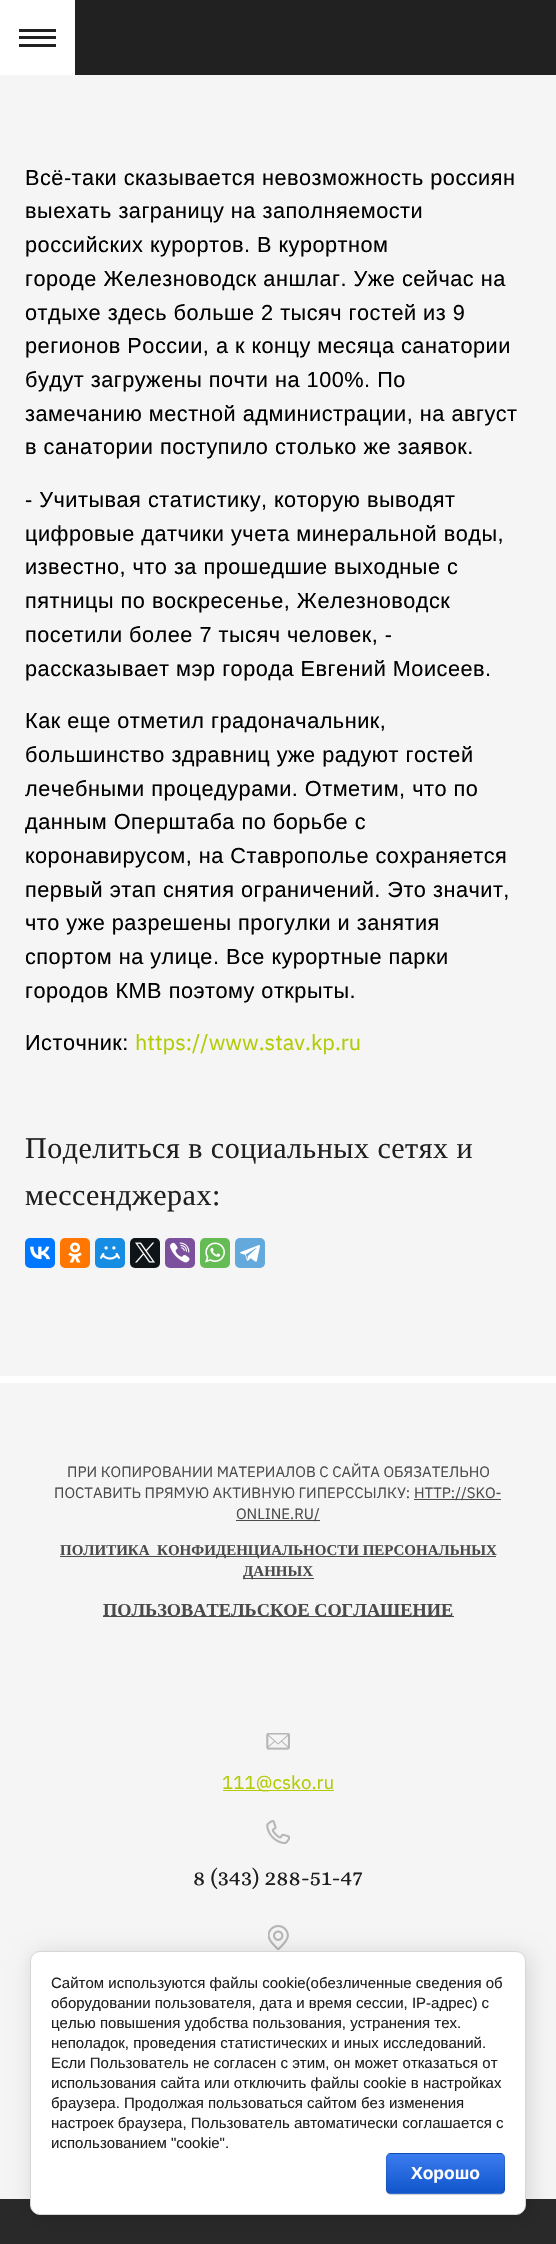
void draw(SkCanvas* canvas) {
	SkPaint fill;
	fill.setAntiAlias(true);
	auto makeFont = [&](const char* family, int weight, float size, bool italic = false) {
		SkFontStyle style(weight, SkFontStyle::kNormal_Width,
			italic ? SkFontStyle::kItalic_Slant : SkFontStyle::kUpright_Slant);
		SkFont result(fontMgr->matchFamilyStyle(family, style), size);
		result.setSubpixel(true);
		return result;
	};
	auto text = [&](const char* s, float x, float y, const SkFont& font) {
		canvas->drawString(s, x, y, font, fill);
	};
	auto spacedText = [&](const char* s, float x, float y, const SkFont& font, const SkPaint& ink, float letter, float word) {
		std::vector<SkGlyphID> glyphs(font.countText(s, strlen(s), SkTextEncoding::kUTF8));
		std::vector<float> xs(glyphs.size());
		font.textToGlyphs(s, strlen(s), SkTextEncoding::kUTF8, glyphs);
		font.getXPos(glyphs, xs, x);
		float extra = 0;
		for (size_t i = 0; i < glyphs.size(); i++) {
			xs[i] += extra;
			extra += letter + word * (glyphs[i] == font.unicharToGlyph(' '));
		}
		canvas->drawTextBlob(SkTextBlob::MakeFromPosHGlyphs(glyphs, xs, y, font), 0, 0, ink);
	};
	auto box = [&](float l, float t, float r, float b) {
		canvas->drawRect(SkRect::MakeLTRB(l, t, r, b), fill);
	};
	auto roundBox = [&](float l, float t, float r, float b, float radius) {
		canvas->drawRoundRect(SkRect::MakeLTRB(l, t, r, b), radius, radius, fill);
	};
	auto picture = [&](const char* path, float l, float t, float r, float b) {
		auto image = SkImages::DeferredFromEncodedData(SkData::MakeFromFileName(path));
		canvas->drawImageRect(image, SkRect::MakeLTRB(l, t, r, b), SkSamplingOptions());
	};
	canvas->clear(0xFFFFFFFF);
	fill.setColor(0xFF212121);
	box(75, 0, 556, 75);
	box(19, 29, 56, 32);
	box(19, 36, 56, 39);
	box(19, 44, 56, 47);
	fill.setColor(0xFFF5F5F5);
	box(0, 75, 556, 1376);
	fill.setColor(0xFF0077FF);
	roundBox(25, 1238, 55, 1268, 5);
	picture("image0.png", 30, 1246, 50, 1260);
	fill.setColor(0xFFFF7700);
	roundBox(60, 1238, 90, 1268, 5);
	picture("image1.png", 68, 1242, 82, 1263);
	fill.setColor(0xFF168DE2);
	roundBox(95, 1238, 125, 1268, 5);
	picture("image2.png", 100, 1246, 120, 1260);
	fill.setColor(0xFF0F1419);
	roundBox(130, 1238, 160, 1268, 5);
	picture("image3.png", 135, 1242, 155, 1263);
	fill.setColor(0xFF7B519D);
	roundBox(165, 1238, 195, 1268, 5);
	picture("image4.png", 170, 1242, 190, 1263);
	fill.setColor(0xFF65BC54);
	roundBox(200, 1238, 230, 1268, 5);
	picture("image5.png", 205, 1242, 225, 1263);
	fill.setColor(0xFF64A9DC);
	roundBox(235, 1238, 265, 1268, 5);
	picture("image6.png", 240, 1245, 260, 1262);
	fill.setColor(0xFFF5F5F5);
	box(0, 1383, 556, 2199);
	fill.setColor(0xFF4B4B4B);
	box(414, 1499, 501, 1500);
	box(236, 1520, 320, 1521);
	box(60, 1556, 496, 1557);
	box(243, 1578, 314, 1579);
	box(103, 1616, 454, 1617);
	picture("image7.png", 266, 1733, 290, 1750);
	fill.setColor(0xFFB3CB04);
	box(223, 1790, 334, 1791);
	picture("image8.png", 266, 1820, 290, 1844);
	picture("image9.png", 268, 1925, 289, 1951);
	fill.setColor(0xFF292929);
	box(0, 2199, 556, 2244);
	fill.setColor(0x24000000);
	fill.setMaskFilter(SkMaskFilter::MakeBlur(kNormal_SkBlurStyle, 11));
	canvas->drawRoundRect(SkRect::MakeLTRB(33, 1954, 529, 2218), 10, 10, fill);
	fill.setMaskFilter(nullptr);
	fill.setColor(0xFFFFFFFF);
	canvas->drawRoundRect(SkRect::MakeLTRB(30.5f, 1951.5f, 525.5f, 2214.5f), 9.5f, 9.5f, fill);
	fill.setStyle(SkPaint::kStroke_Style);
	fill.setStrokeWidth(1);
	fill.setColor(0xFFD6D6D6);
	canvas->drawRoundRect(SkRect::MakeLTRB(30.5f, 1951.5f, 525.5f, 2214.5f), 9.5f, 9.5f, fill);
	fill.setStyle(SkPaint::kFill_Style);
	fill.setColor(0x33000000);
	fill.setMaskFilter(SkMaskFilter::MakeBlur(kNormal_SkBlurStyle, 0.5f));
	canvas->drawRoundRect(SkRect::MakeLTRB(386, 2154, 505, 2195), 5, 5, fill);
	fill.setMaskFilter(nullptr);
	canvas->save();
	canvas->clipPath(SkPathBuilder().moveTo(391, 2153).lineTo(500, 2153).cubicTo(503, 2153, 505, 2155, 505, 2158).lineTo(505, 2189).cubicTo(505, 2192, 503, 2194, 500, 2194).lineTo(391, 2194).cubicTo(388, 2194, 386, 2192, 386, 2189).lineTo(386, 2158).cubicTo(386, 2155, 388, 2153, 391, 2153).close().detach(), true);
	{
		const SkColor colors[] = {0xFF3B7CEF, 0xFF1155CC};
		const float stops[] = {0, 1};
		const SkPoint ends[] = {{446, 2115}, {446, 2154}};
		fill.setShader(SkGradientShader::MakeLinear(ends, colors, stops, 2, SkTileMode::kClamp));
		fill.setAlpha(255);
	}
	box(386, 2153, 505, 2154);
	{
		const SkColor colors[] = {0xFF3B7CEF, 0xFF1155CC};
		const float stops[] = {0, 1};
		const SkPoint ends[] = {{446, 2154}, {446, 2193}};
		fill.setShader(SkGradientShader::MakeLinear(ends, colors, stops, 2, SkTileMode::kClamp));
		fill.setAlpha(255);
	}
	box(386, 2154, 505, 2193);
	{
		const SkColor colors[] = {0xFF3B7CEF, 0xFF1155CC};
		const float stops[] = {0, 1};
		const SkPoint ends[] = {{446, 2193}, {446, 2231}};
		fill.setShader(SkGradientShader::MakeLinear(ends, colors, stops, 2, SkTileMode::kClamp));
		fill.setAlpha(255);
	}
	box(386, 2193, 505, 2194);
	canvas->restore();
	fill.setStyle(SkPaint::kStroke_Style);
	fill.setShader(nullptr);
	fill.setColor(0x1A000000);
	canvas->drawRoundRect(SkRect::MakeLTRB(386.5f, 2153.5f, 504.5f, 2193.5f), 4.5f, 4.5f, fill);
	auto font1 = makeFont("Liberation Sans", 400, 21.7f);
	fill.setStyle(SkPaint::kFill_Style);
	fill.setColor(0xFF000000);
	spacedText("Всё-таки сказывается невозможность россиян", 25, 185, font1, fill, 0.5f, 0);
	spacedText("выехать заграницу на заполняемости", 25, 218, font1, fill, 0.5f, 0);
	spacedText("российских курортов. В курортном", 25, 252, font1, fill, 0.5f, 0);
	spacedText("городе Железноводск аншлаг. Уже сейчас на", 25, 286, font1, fill, 0.5f, 0);
	spacedText("отдыхе здесь больше 2 тысяч гостей из 9", 25, 320, font1, fill, 0.5f, 0);
	spacedText("регионов России, а к концу месяца санатории", 25, 353, font1, fill, 0.5f, 0);
	spacedText("будут загружены почти на 100%. По", 25, 387, font1, fill, 0.5f, 0);
	spacedText("замечанию местной администрации, на август", 25, 421, font1, fill, 0.5f, 0);
	spacedText("в санатории поступило столько же заявок.", 25, 454, font1, fill, 0.5f, 0);
	spacedText("- Учитывая статистику, которую выводят", 25, 507, font1, fill, 0.5f, 0);
	spacedText("цифровые датчики учета минеральной воды,", 25, 541, font1, fill, 0.5f, 0);
	spacedText("известно, что за прошедшие выходные с", 25, 574, font1, fill, 0.5f, 0);
	spacedText("пятницы по воскресенье, Железноводск", 25, 608, font1, fill, 0.5f, 0);
	spacedText("посетили более 7 тысяч человек, -", 25, 642, font1, fill, 0.5f, 0);
	spacedText("рассказывает мэр города Евгений Моисеев.", 25, 676, font1, fill, 0.5f, 0);
	spacedText("Как еще отметил градоначальник,", 25, 728, font1, fill, 0.5f, 0);
	spacedText("большинство здравниц уже радуют гостей", 25, 762, font1, fill, 0.5f, 0);
	spacedText("лечебными процедурами. Отметим, что по", 25, 796, font1, fill, 0.5f, 0);
	spacedText("данным Оперштаба по борьбе с", 25, 829, font1, fill, 0.5f, 0);
	spacedText("коронавирусом, на Ставрополье сохраняется", 25, 863, font1, fill, 0.5f, 0);
	spacedText("первый этап снятия ограничений. Это значит,", 25, 897, font1, fill, 0.5f, 0);
	spacedText("что уже разрешены прогулки и занятия", 25, 930, font1, fill, 0.5f, 0);
	spacedText("спортом на улице. Все курортные парки", 25, 964, font1, fill, 0.5f, 0);
	spacedText("городов КМВ поэтому открыты.", 25, 998, font1, fill, 0.5f, 0);
	spacedText("Источник:", 25, 1050, font1, fill, 0.5f, 0);
	auto font2 = makeFont("IBM Plex Sans", 400, 21.7f);
	fill.setColor(0xFFB3CB04);
	text("https://www.stav.kp.ru", 135, 1050, font2);
	auto font3 = makeFont("Liberation Serif", 400, 30);
	fill.setColor(0xFF202020);
	spacedText("Поделиться в социальных сетях и", 25, 1158, font3, fill, 0.5f, 0);
	spacedText("мессенджерах:", 25, 1205, font3, fill, 0.5f, 0);
	auto font4 = makeFont("IBM Plex Sans", 400, 15);
	fill.setColor(0xFF4B4B4B);
	text("ПРИ КОПИРОВАНИИ МАТЕРИАЛОВ С САЙТА ОБЯЗАТЕЛЬНО", 67, 1477, font4);
	text("ПОСТАВИТЬ ПРЯМУЮ АКТИВНУЮ ГИПЕРССЫЛКУ:", 54, 1498, font4);
	text("HTTP://SKO-", 414, 1498, font4);
	text("ONLINE.RU/", 236, 1519, font4);
	auto font5 = makeFont("Liberation Serif", 700, 15);
	text("ПОЛИТИКА  КОНФИДЕНЦИАЛЬНОСТИ ПЕРСОНАЛЬНЫХ", 60, 1555, font5);
	text("ДАННЫХ", 243, 1576, font5);
	auto font6 = makeFont("Liberation Serif", 700, 18.3f);
	text("ПОЛЬЗОВАТЕЛЬСКОЕ СОГЛАШЕНИЕ", 103, 1616, font6);
	auto font7 = makeFont("IBM Plex Sans", 400, 18.75f);
	fill.setColor(0xFFB3CB04);
	text("111@csko.ru", 222, 1789, font7);
	auto font8 = makeFont("Alice", 400, 23.75f);
	fill.setColor(0xFF202020);
	text("8 (343) 288-51-47", 193, 1885, font8);
	auto font9 = makeFont("Liberation Sans", 400, 15);
	text("Сайтом используются файлы cookie(обезличенные сведения об", 51, 1988, font9);
	text("оборудовании пользователя, дата и время сессии, IP-адрес) с", 51, 2008, font9);
	text("целью повышения удобства пользования, устранения тех.", 51, 2028, font9);
	text("неполадок, проведения статистических и иных исследований.", 51, 2048, font9);
	text("Если Пользователь не согласен с этим, он может отказаться от", 51, 2068, font9);
	text("использования сайта или отключить файлы cookie в настройках", 51, 2088, font9);
	text("браузера. Продолжая пользоваться сайтом без изменения", 51, 2108, font9);
	text("настроек браузера, Пользователь автоматически соглашается с", 51, 2128, font9);
	text("использованием \"cookie\".", 51, 2148, font9);
	auto font10 = makeFont("Liberation Sans", 700, 17.5f);
	fill.setColor(0xFFFFFFFF);
	text("Хорошо", 411, 2179, font10);
}
